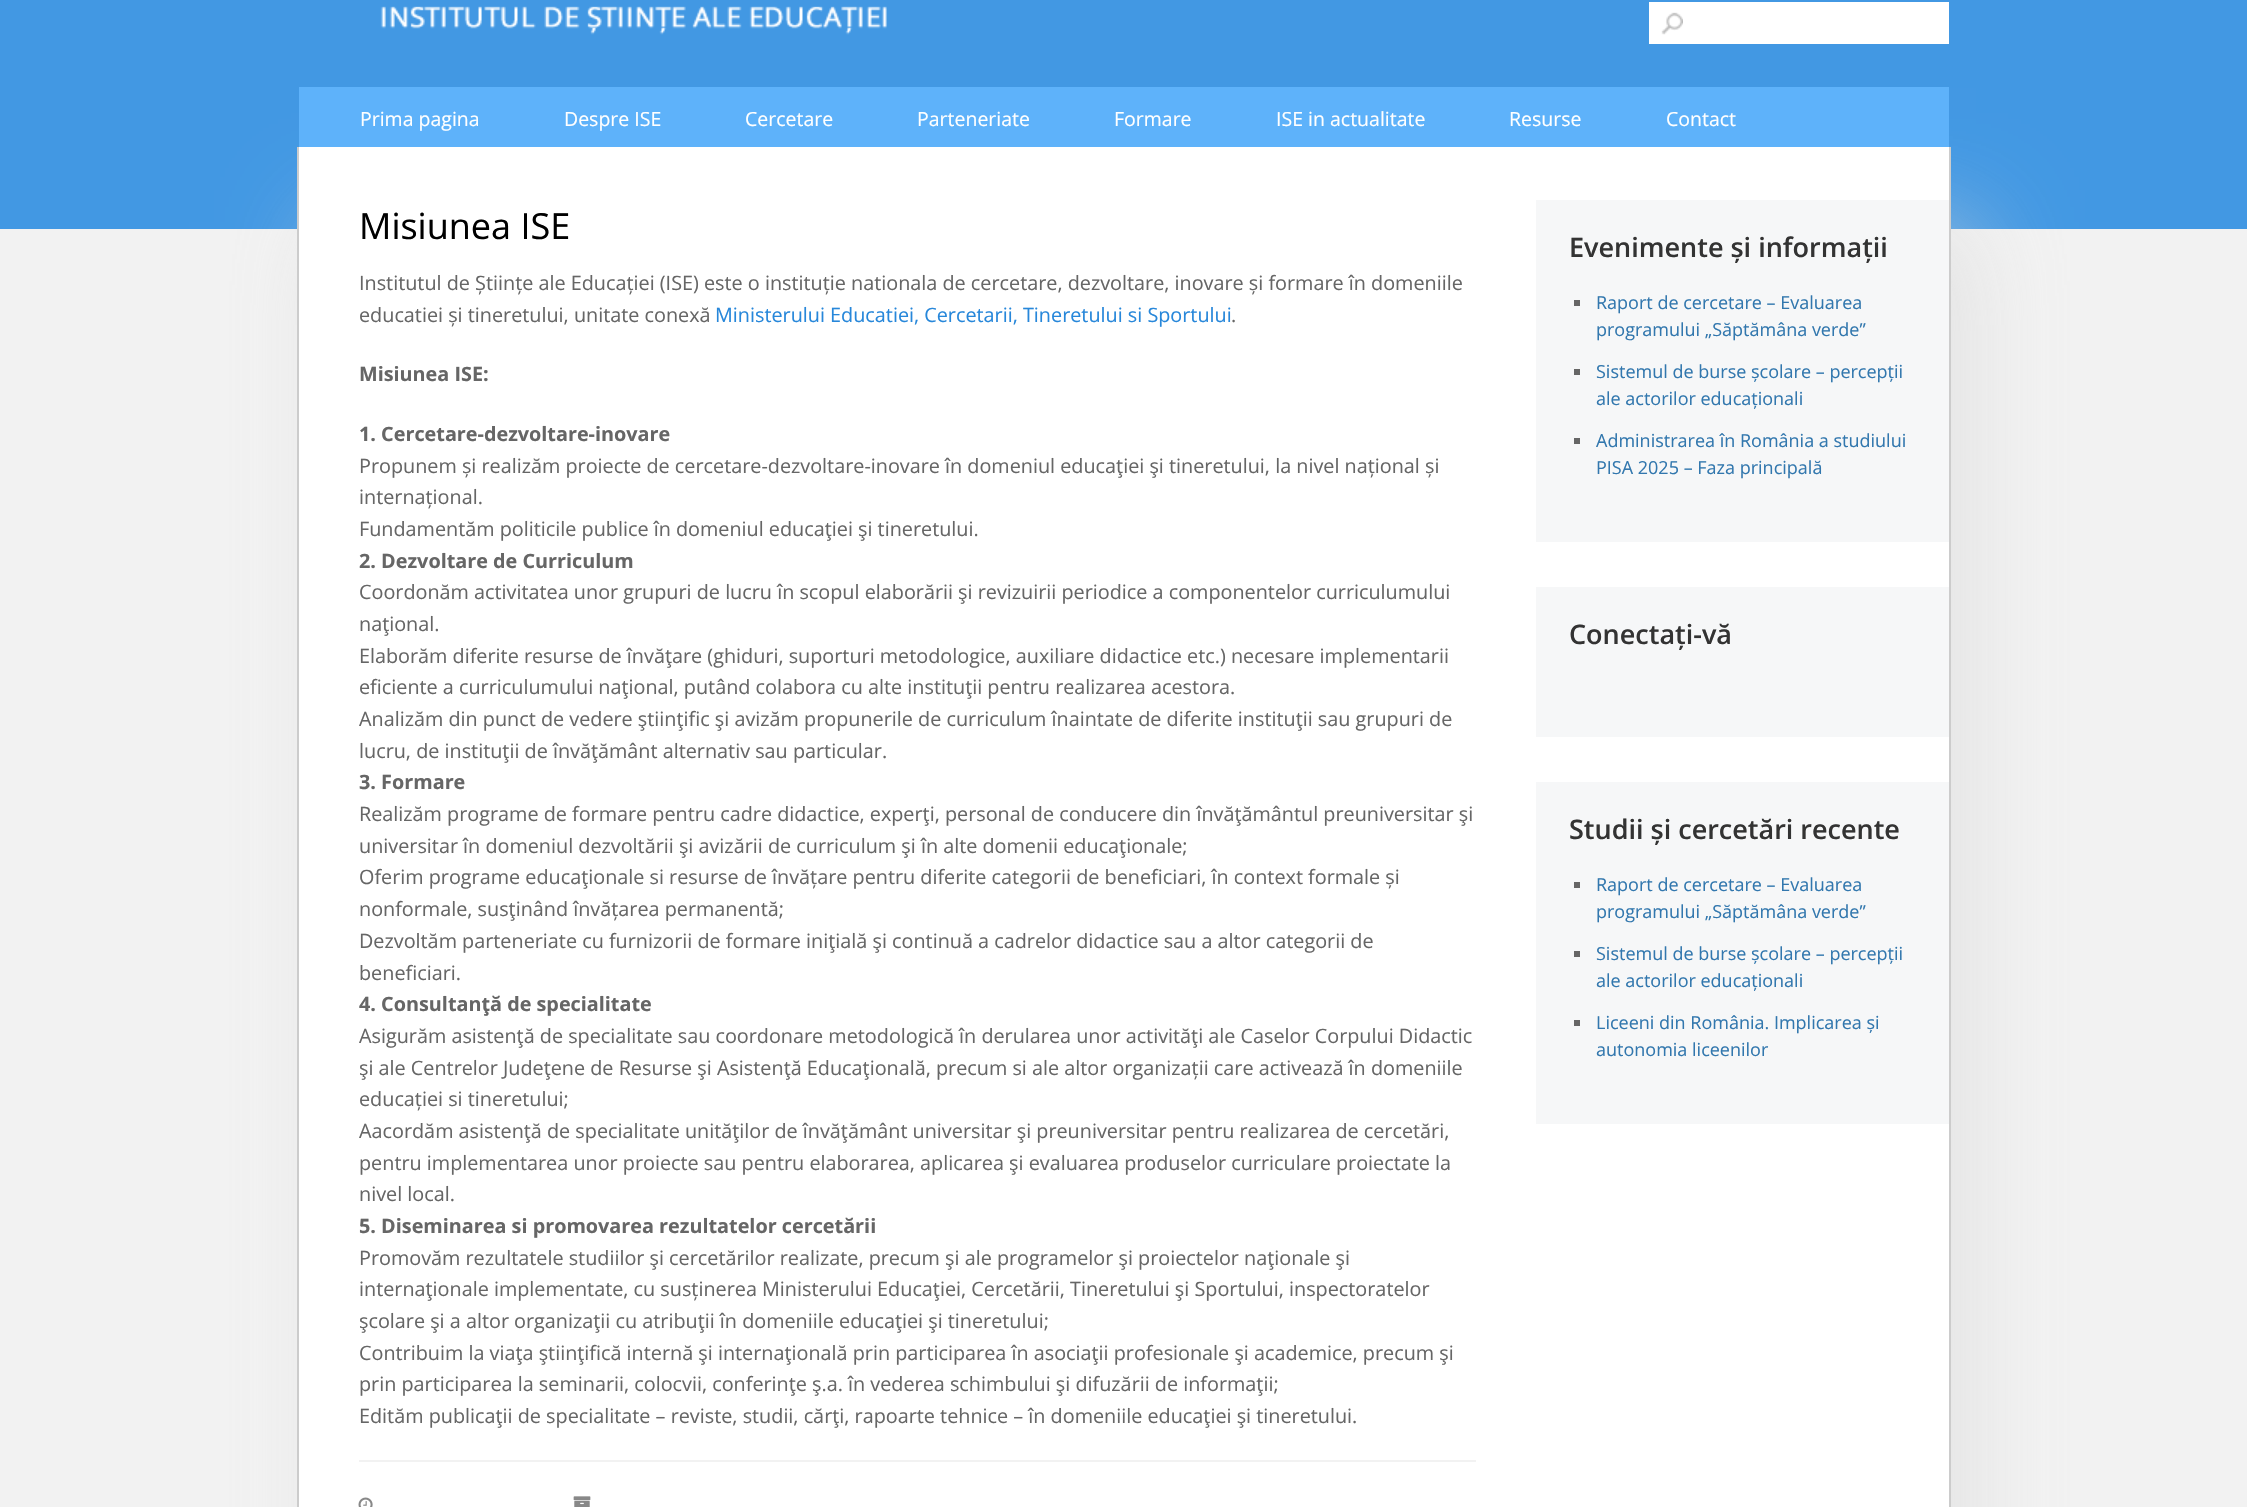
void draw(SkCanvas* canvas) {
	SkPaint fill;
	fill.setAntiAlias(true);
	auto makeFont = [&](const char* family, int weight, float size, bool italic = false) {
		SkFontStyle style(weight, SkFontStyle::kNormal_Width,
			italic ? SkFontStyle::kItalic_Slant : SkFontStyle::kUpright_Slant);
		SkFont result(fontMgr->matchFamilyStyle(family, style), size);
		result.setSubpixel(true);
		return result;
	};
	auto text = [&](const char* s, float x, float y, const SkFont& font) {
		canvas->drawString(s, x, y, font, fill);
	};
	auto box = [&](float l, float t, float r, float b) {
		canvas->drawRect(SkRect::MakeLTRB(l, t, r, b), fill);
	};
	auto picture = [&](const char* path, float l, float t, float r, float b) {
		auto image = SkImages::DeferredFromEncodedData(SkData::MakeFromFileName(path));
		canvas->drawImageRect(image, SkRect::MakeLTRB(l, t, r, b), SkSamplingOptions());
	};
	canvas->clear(0xFFF2F2F2);
	fill.setColor(0xFF4298E3);
	box(0, 0, 2247, 229);
	picture("image0.png", 380, 6, 887, 35);
	fill.setColor(0xFFFFFFFF);
	box(1649, 2, 1949, 44);
	picture("image1.png", 1661, 12, 1683, 35);
	fill.setColor(0xA6DCDBDB);
	fill.setMaskFilter(SkMaskFilter::MakeBlur(kNormal_SkBlurStyle, 45));
	canvas->drawRect(SkRect::MakeLTRB(323, 222, 1976, 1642), fill);
	fill.setMaskFilter(nullptr);
	fill.setColor(0xFF5EB2FA);
	box(299, 87, 1949, 147);
	fill.setColor(0xFFFFFFFF);
	box(299, 147, 1949, 1507);
	fill.setColor(0xFFCCCCCC);
	box(1949, 147, 1951, 1507);
	box(297, 147, 299, 1507);
	fill.setColor(0xFFF2F2F2);
	box(359, 1460, 1476, 1462);
	picture("image2.png", 358, 1497, 373, 1507);
	picture("image3.png", 573, 1496, 591, 1507);
	fill.setColor(0xFFF6F7F8);
	box(1536, 200, 1949, 542);
	fill.setColor(0xFF666666);
	box(1574, 300, 1580, 306);
	box(1574, 369, 1580, 375);
	box(1574, 438, 1580, 444);
	fill.setColor(0xFFF6F7F8);
	box(1536, 587, 1949, 737);
	box(1536, 782, 1949, 1124);
	fill.setColor(0xFF666666);
	box(1574, 882, 1580, 888);
	box(1574, 951, 1580, 957);
	box(1574, 1020, 1580, 1026);
	auto font1 = makeFont("Open Sans", 400, 19.5f);
	fill.setColor(0xFFFFFFFF);
	text("Prima pagina", 360, 126, font1);
	text("Despre ISE", 564, 126, font1);
	text("Cercetare", 745, 126, font1);
	text("Parteneriate", 917, 126, font1);
	text("Formare", 1114, 126, font1);
	text("ISE in actualitate", 1276, 126, font1);
	text("Resurse", 1509, 126, font1);
	text("Contact", 1666, 126, font1);
	auto font2 = makeFont("Open Sans", 400, 36);
	fill.setColor(0xFF000000);
	text("Misiunea ISE", 359, 239, font2);
	auto font3 = makeFont("Open Sans", 400, 19.8f);
	fill.setColor(0xFF666666);
	text("Institutul de Științe ale Educației (ISE) este o instituție nationala de cercetare, dezvoltare, inovare și formare în domeniile", 359, 290, font3);
	text("educatiei și tineretului, unitate conexă", 359, 322, font3);
	fill.setColor(0xFF2787DA);
	text("Ministerului Educatiei, Cercetarii, Tineretului si Sportului", 715, 322, font3);
	fill.setColor(0xFF666666);
	text(".", 1231, 322, font3);
	auto font4 = makeFont("Open Sans", 700, 19.8f);
	text("Misiunea ISE:", 359, 381, font4);
	text("1. Cercetare-dezvoltare-inovare", 359, 441, font4);
	text("Propunem și realizăm proiecte de cercetare-dezvoltare-inovare în domeniul educaţiei şi tineretului, la nivel național și", 359, 473, font3);
	text("internațional.", 359, 504, font3);
	text("Fundamentăm politicile publice în domeniul educaţiei şi tineretului.", 359, 536, font3);
	text("2. Dezvoltare de Curriculum", 359, 568, font4);
	text("Coordonăm activitatea unor grupuri de lucru în scopul elaborării şi revizuirii periodice a componentelor curriculumului", 359, 599, font3);
	text("naţional.", 359, 631, font3);
	text("Elaborăm diferite resurse de învăţare (ghiduri, suporturi metodologice, auxiliare didactice etc.) necesare implementarii", 359, 663, font3);
	text("eficiente a curriculumului naţional, putând colabora cu alte instituţii pentru realizarea acestora.", 359, 694, font3);
	text("Analizăm din punct de vedere ştiinţific şi avizăm propunerile de curriculum înaintate de diferite instituţii sau grupuri de", 359, 726, font3);
	text("lucru, de instituţii de învăţământ alternativ sau particular.", 359, 758, font3);
	text("3. Formare", 359, 789, font4);
	text("Realizăm programe de formare pentru cadre didactice, experţi, personal de conducere din învăţământul preuniversitar şi", 359, 821, font3);
	text("universitar în domeniul dezvoltării şi avizării de curriculum şi în alte domenii educaţionale;", 359, 853, font3);
	text("Oferim programe educaţionale si resurse de învățare pentru diferite categorii de beneficiari, în context formale și", 359, 884, font3);
	text("nonformale, susţinând învățarea permanentă;", 359, 916, font3);
	text("Dezvoltăm parteneriate cu furnizorii de formare iniţială şi continuă a cadrelor didactice sau a altor categorii de", 359, 948, font3);
	text("beneficiari.", 359, 980, font3);
	text("4. Consultanţă de specialitate", 359, 1011, font4);
	text("Asigurăm asistenţă de specialitate sau coordonare metodologică în derularea unor activităţi ale Caselor Corpului Didactic", 359, 1043, font3);
	text("şi ale Centrelor Judeţene de Resurse şi Asistenţă Educaţională, precum si ale altor organizații care activează în domeniile", 359, 1075, font3);
	text("educației si tineretului;", 359, 1106, font3);
	text("Aacordăm asistenţă de specialitate unităţilor de învăţământ universitar şi preuniversitar pentru realizarea de cercetări,", 359, 1138, font3);
	text("pentru implementarea unor proiecte sau pentru elaborarea, aplicarea şi evaluarea produselor curriculare proiectate la", 359, 1170, font3);
	text("nivel local.", 359, 1201, font3);
	text("5. Diseminarea si promovarea rezultatelor cercetării", 359, 1233, font4);
	text("Promovăm rezultatele studiilor şi cercetărilor realizate, precum şi ale programelor şi proiectelor naţionale şi", 359, 1265, font3);
	text("internaţionale implementate, cu susținerea Ministerului Educaţiei, Cercetării, Tineretului şi Sportului, inspectoratelor", 359, 1296, font3);
	text("şcolare şi a altor organizaţii cu atribuţii în domeniile educaţiei şi tineretului;", 359, 1328, font3);
	text("Contribuim la viaţa ştiinţifică internă şi internaţională prin participarea în asociaţii profesionale şi academice, precum şi", 359, 1360, font3);
	text("prin participarea la seminarii, colocvii, conferinţe ş.a. în vederea schimbului şi difuzării de informaţii;", 359, 1391, font3);
	text("Edităm publicaţii de specialitate – reviste, studii, cărţi, rapoarte tehnice – în domeniile educaţiei şi tineretului.", 359, 1423, font3);
	auto font5 = makeFont("Open Sans", 600, 27);
	fill.setColor(0xFF333333);
	text("Evenimente și informații", 1569, 257, font5);
	auto font6 = makeFont("Open Sans", 400, 18);
	fill.setColor(0xFF3277AE);
	text("Raport de cercetare – Evaluarea", 1596, 309, font6);
	text("programului „Săptămâna verde”", 1596, 336, font6);
	text("Sistemul de burse școlare – percepții", 1596, 378, font6);
	text("ale actorilor educaționali", 1596, 405, font6);
	text("Administrarea în România a studiului", 1596, 447, font6);
	text("PISA 2025 – Faza principală", 1596, 474, font6);
	fill.setColor(0xFF333333);
	text("Conectați-vă", 1569, 644, font5);
	text("Studii și cercetări recente", 1569, 839, font5);
	fill.setColor(0xFF3277AE);
	text("Raport de cercetare – Evaluarea", 1596, 891, font6);
	text("programului „Săptămâna verde”", 1596, 918, font6);
	text("Sistemul de burse școlare – percepții", 1596, 960, font6);
	text("ale actorilor educaționali", 1596, 987, font6);
	text("Liceeni din România. Implicarea și", 1596, 1029, font6);
	text("autonomia liceenilor", 1596, 1056, font6);
}
